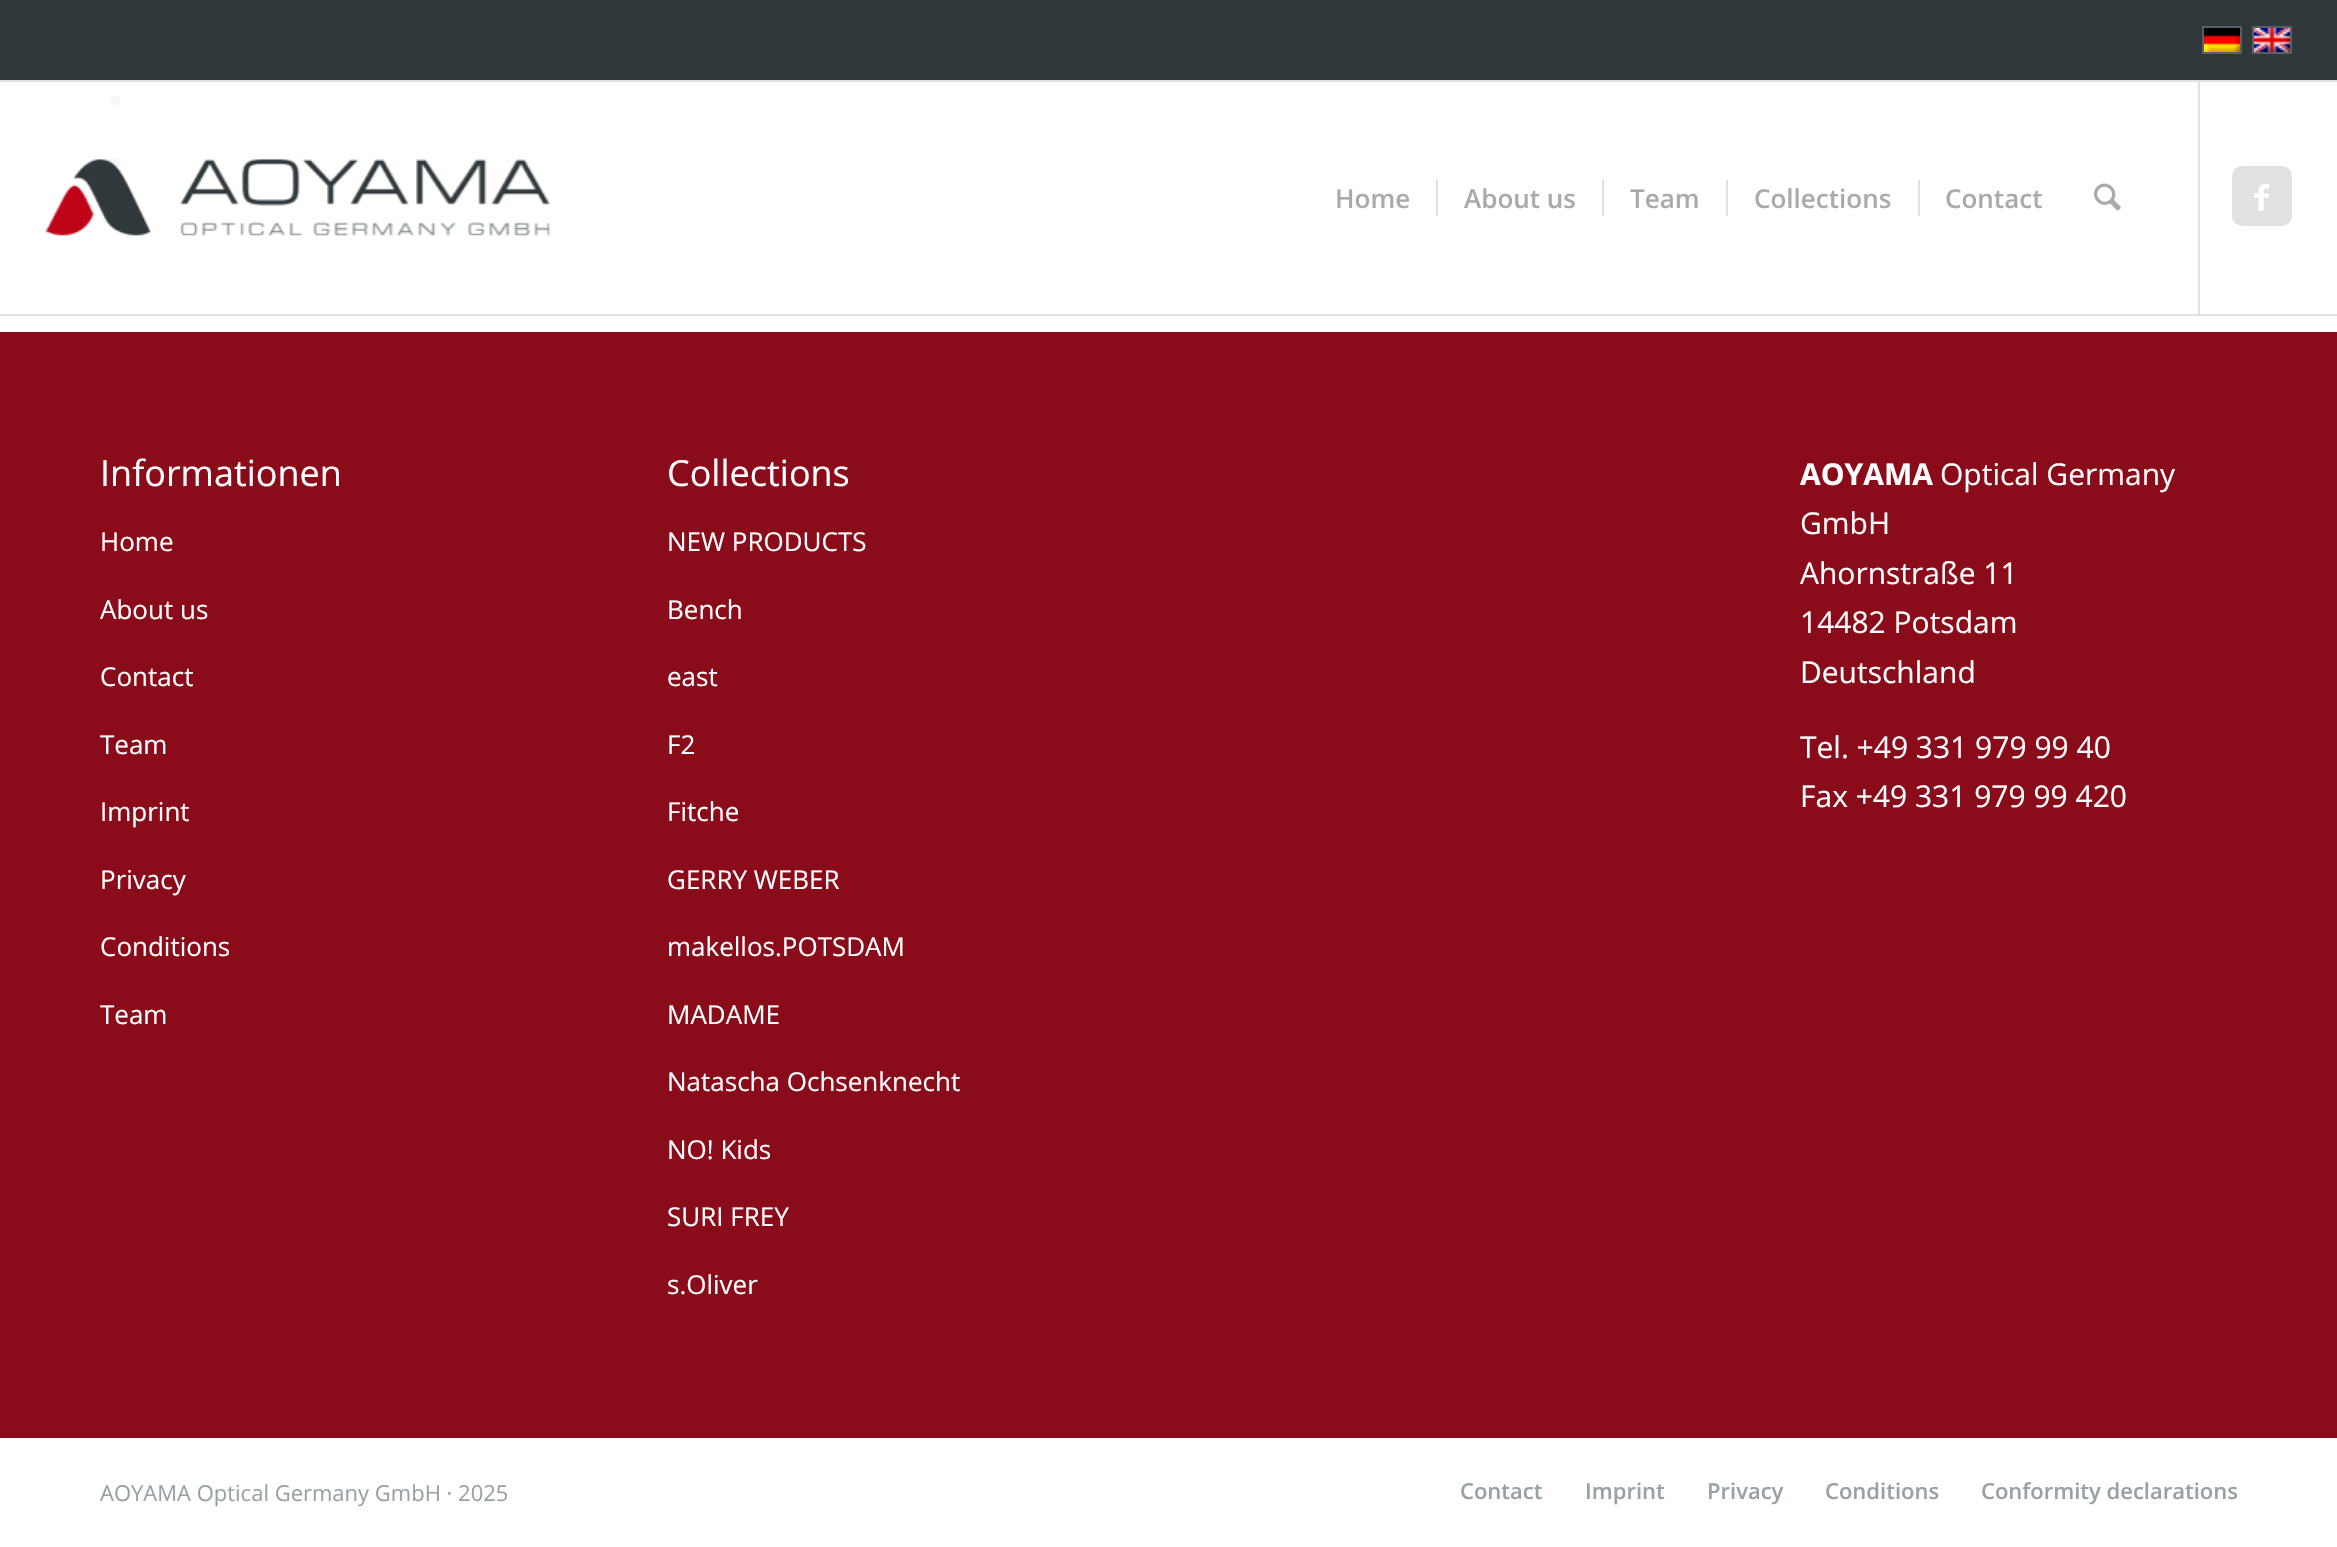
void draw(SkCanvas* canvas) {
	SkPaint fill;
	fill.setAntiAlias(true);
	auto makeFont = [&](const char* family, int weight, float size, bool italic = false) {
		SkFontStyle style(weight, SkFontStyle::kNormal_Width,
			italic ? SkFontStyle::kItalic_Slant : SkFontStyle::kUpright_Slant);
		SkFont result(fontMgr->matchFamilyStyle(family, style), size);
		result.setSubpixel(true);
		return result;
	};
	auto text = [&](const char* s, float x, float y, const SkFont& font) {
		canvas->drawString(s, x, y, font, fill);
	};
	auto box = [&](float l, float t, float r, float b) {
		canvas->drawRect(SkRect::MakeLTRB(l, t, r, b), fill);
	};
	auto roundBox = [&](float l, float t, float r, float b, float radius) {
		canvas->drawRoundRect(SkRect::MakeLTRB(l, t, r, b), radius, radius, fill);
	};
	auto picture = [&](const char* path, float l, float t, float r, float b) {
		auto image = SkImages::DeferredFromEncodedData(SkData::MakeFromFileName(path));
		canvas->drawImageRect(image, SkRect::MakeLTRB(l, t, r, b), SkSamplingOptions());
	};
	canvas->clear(0xFFFFFFFF);
	fill.setColor(0xFF30383C);
	box(0, 0, 2337, 80);
	fill.setColor(0xFFE1E1E1);
	box(0, 80, 2337, 82);
	fill.setStyle(SkPaint::kStroke_Style);
	fill.setStrokeWidth(2);
	fill.setColor(0xFF596063);
	canvas->drawRect(SkRect::MakeLTRB(2203, 27, 2241, 53), fill);
	picture("image0.png", 2204, 28, 2240, 52);
	canvas->drawRect(SkRect::MakeLTRB(2253, 27, 2291, 53), fill);
	picture("image1.png", 2254, 28, 2290, 52);
	fill.setStyle(SkPaint::kFill_Style);
	fill.setColor(0xFFE1E1E1);
	box(0, 314, 2337, 316);
	fill.setColor(0xFFF7F7F7);
	canvas->drawCircle(115, 163, 5, fill);
	picture("image2.png", 46, 159, 551, 236);
	fill.setColor(0xFFE1E1E1);
	box(2198, 82, 2200, 314);
	box(1436, 180, 1438, 216);
	box(1602, 180, 1604, 216);
	box(1726, 180, 1728, 216);
	box(1918, 180, 1920, 216);
	picture("image3.png", 2094, 183, 2121, 211);
	roundBox(2232, 166, 2292, 226, 10);
	picture("image4.png", 2254, 184, 2269, 211);
	fill.setColor(0xFFF7F7F7);
	canvas->drawCircle(115, 101, 5, fill);
	fill.setColor(0xFF8A0C1B);
	box(0, 332, 2337, 1438);
	auto font1 = makeFont("Open Sans", 600, 26);
	fill.setColor(0xFFAAAAAA);
	text("Home", 1335, 208, font1);
	text("About us", 1464, 208, font1);
	text("Team", 1630, 208, font1);
	text("Collections", 1754, 208, font1);
	text("Contact", 1945, 208, font1);
	auto font2 = makeFont("Open Sans", 400, 36);
	fill.setColor(0xFFFFFFFF);
	text("Informationen", 100, 486, font2);
	auto font3 = makeFont("Open Sans", 400, 26);
	text("Home", 100, 551, font3);
	text("About us", 100, 619, font3);
	text("Contact", 100, 686, font3);
	text("Team", 100, 754, font3);
	text("Imprint", 100, 821, font3);
	text("Privacy", 100, 889, font3);
	text("Conditions", 100, 956, font3);
	text("Team", 100, 1024, font3);
	text("Collections", 667, 486, font2);
	text("NEW PRODUCTS", 667, 551, font3);
	text("Bench", 667, 619, font3);
	text("east", 667, 686, font3);
	text("F2", 667, 754, font3);
	text("Fitche", 667, 821, font3);
	text("GERRY WEBER", 667, 889, font3);
	text("makellos.POTSDAM", 667, 956, font3);
	text("MADAME", 667, 1024, font3);
	text("Natascha Ochsenknecht", 667, 1091, font3);
	text("NO! Kids", 667, 1159, font3);
	text("SURI FREY", 667, 1226, font3);
	text("s.Oliver", 667, 1294, font3);
	auto font4 = makeFont("Open Sans", 700, 30);
	text("AOYAMA", 1800, 485, font4);
	auto font5 = makeFont("Open Sans", 400, 30);
	text("Optical Germany", 1940, 485, font5);
	text("GmbH", 1800, 534, font5);
	text("Ahornstraße 11", 1800, 584, font5);
	text("14482 Potsdam", 1800, 633, font5);
	text("Deutschland", 1800, 683, font5);
	text("Tel. +49 331 979 99 40", 1800, 758, font5);
	text("Fax +49 331 979 99 420", 1800, 807, font5);
	auto font6 = makeFont("Open Sans", 400, 22);
	fill.setColor(0xFF97A1A6);
	text("AOYAMA Optical Germany GmbH · 2025", 100, 1501, font6);
	auto font7 = makeFont("Open Sans", 600, 22);
	text("Contact", 1460, 1499, font7);
	text("Imprint", 1585, 1499, font7);
	text("Privacy", 1707, 1499, font7);
	text("Conditions", 1825, 1499, font7);
	text("Conformity declarations", 1981, 1499, font7);
}
